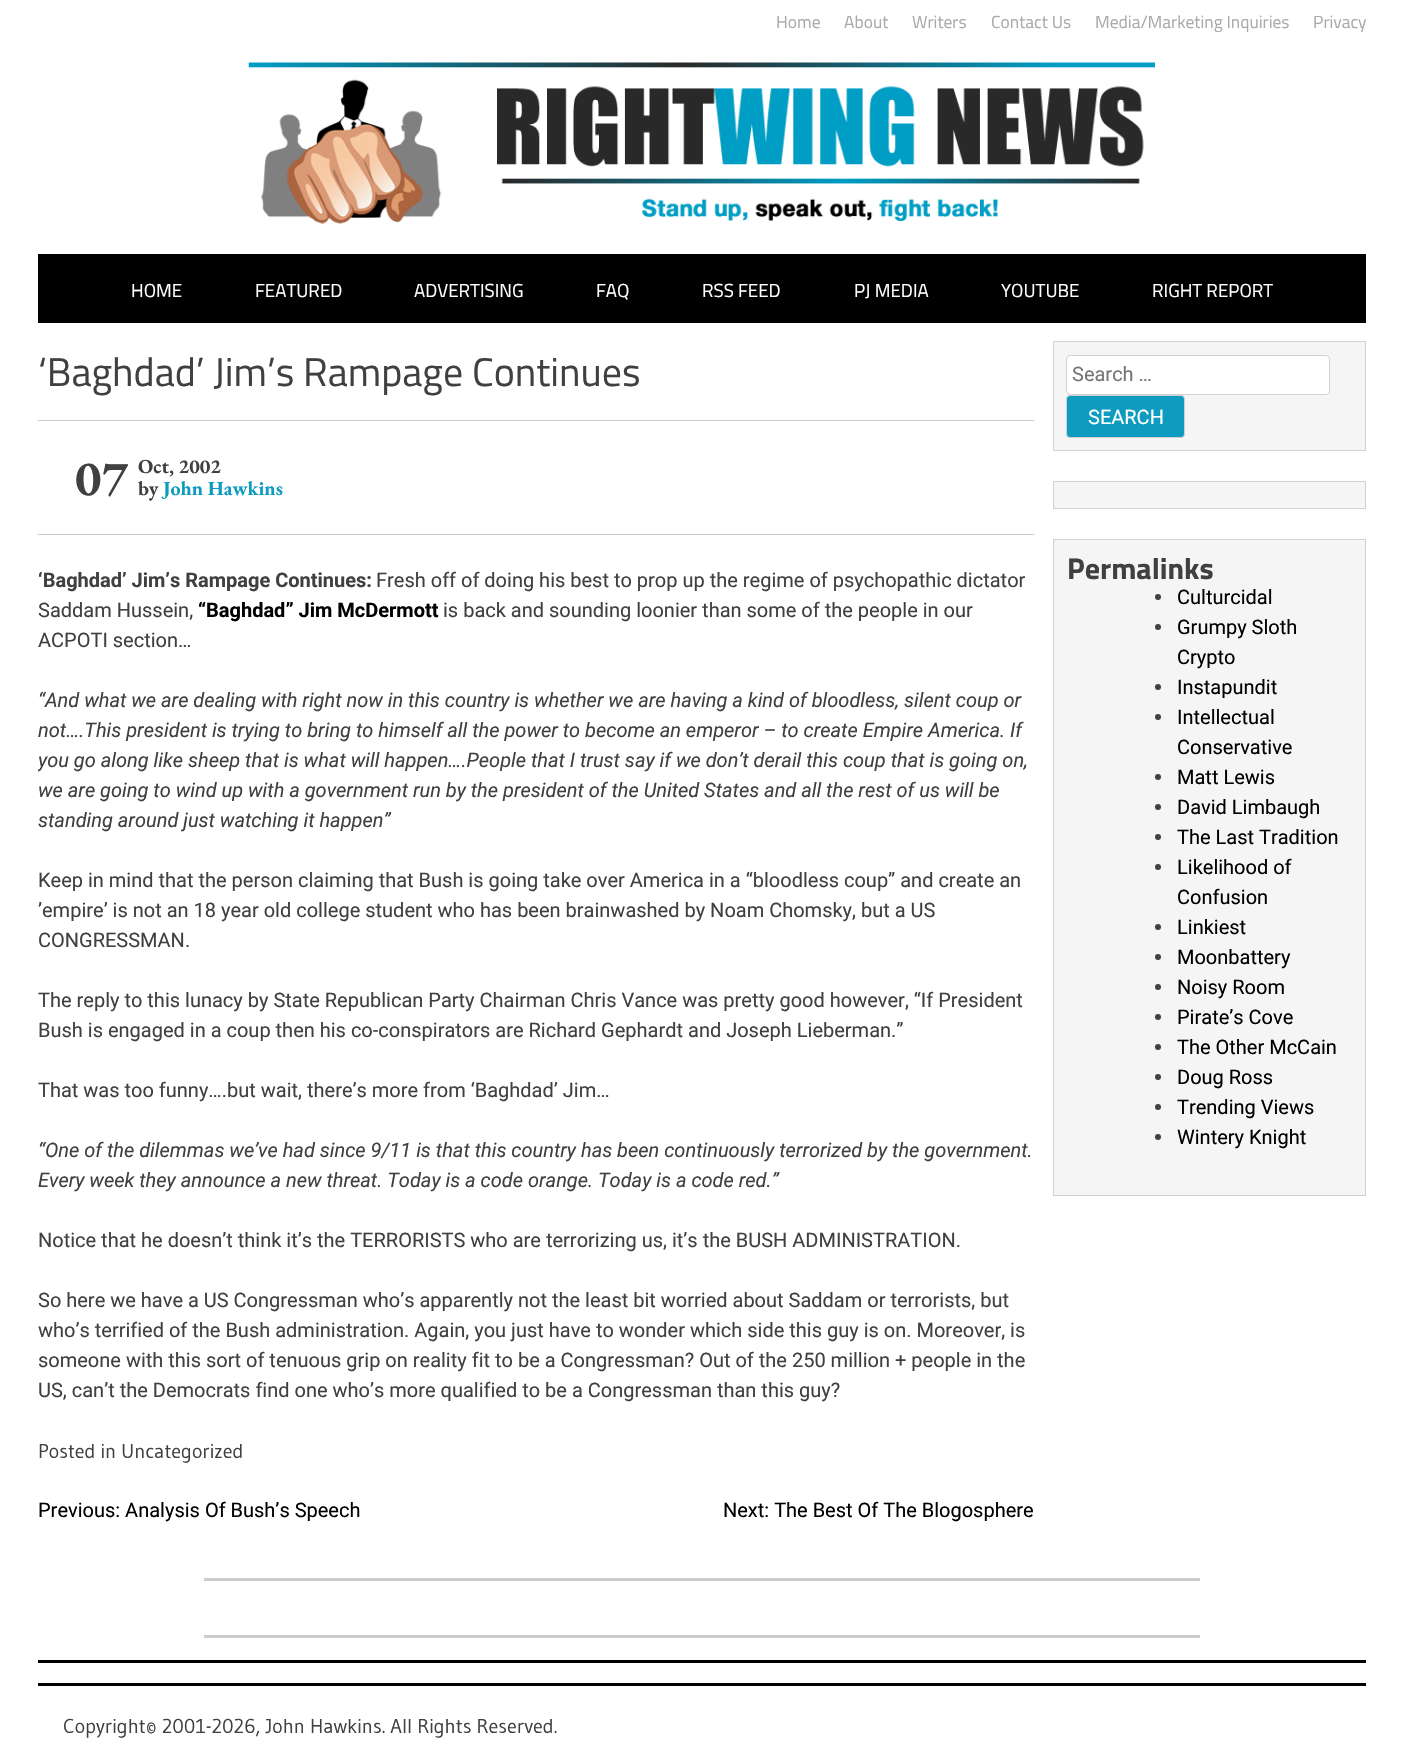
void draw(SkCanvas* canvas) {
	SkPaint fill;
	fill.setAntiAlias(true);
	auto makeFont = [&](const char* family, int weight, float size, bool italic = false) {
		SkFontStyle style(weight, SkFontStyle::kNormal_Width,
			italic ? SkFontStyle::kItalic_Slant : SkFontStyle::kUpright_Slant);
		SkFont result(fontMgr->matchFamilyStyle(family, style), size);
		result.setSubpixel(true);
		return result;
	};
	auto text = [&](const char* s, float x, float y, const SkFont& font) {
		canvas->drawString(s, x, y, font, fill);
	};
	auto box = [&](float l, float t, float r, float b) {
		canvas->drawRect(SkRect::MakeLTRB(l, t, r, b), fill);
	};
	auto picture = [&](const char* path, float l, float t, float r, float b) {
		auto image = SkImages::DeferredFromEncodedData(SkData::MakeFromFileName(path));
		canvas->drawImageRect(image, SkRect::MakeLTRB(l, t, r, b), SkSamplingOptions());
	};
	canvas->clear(0xFFFFFFFF);
	picture("image0.png", 248, 62, 1155, 224);
	fill.setColor(0xFF000000);
	box(38, 254, 1366, 323);
	fill.setColor(0xFFCCCCCC);
	box(38, 420, 1034, 421);
	box(38, 534, 1034, 535);
	fill.setColor(0xFFF5F5F5);
	canvas->drawRect(SkRect::MakeLTRB(1053.5f, 341.5f, 1365.5f, 450.5f), fill);
	fill.setStyle(SkPaint::kStroke_Style);
	fill.setStrokeWidth(1);
	fill.setColor(0xFFD1D1D1);
	canvas->drawRect(SkRect::MakeLTRB(1053.5f, 341.5f, 1365.5f, 450.5f), fill);
	fill.setStyle(SkPaint::kFill_Style);
	fill.setColor(0xFFFFFFFF);
	canvas->drawRoundRect(SkRect::MakeLTRB(1066.5f, 355.5f, 1329.5f, 394.5f), 3.5f, 3.5f, fill);
	fill.setStyle(SkPaint::kStroke_Style);
	fill.setColor(0xFFD1D1D1);
	canvas->drawRoundRect(SkRect::MakeLTRB(1066.5f, 355.5f, 1329.5f, 394.5f), 3.5f, 3.5f, fill);
	fill.setStyle(SkPaint::kFill_Style);
	fill.setColor(0xFF0D9CBF);
	canvas->drawRoundRect(SkRect::MakeLTRB(1066.5f, 395.5f, 1184.5f, 437.5f), 3.5f, 3.5f, fill);
	fill.setStyle(SkPaint::kStroke_Style);
	fill.setColor(0xFFD1D1D1);
	canvas->drawRoundRect(SkRect::MakeLTRB(1066.5f, 395.5f, 1184.5f, 437.5f), 3.5f, 3.5f, fill);
	fill.setStyle(SkPaint::kFill_Style);
	fill.setColor(0xFFF5F5F5);
	canvas->drawRect(SkRect::MakeLTRB(1053.5f, 481.5f, 1365.5f, 508.5f), fill);
	fill.setStyle(SkPaint::kStroke_Style);
	fill.setColor(0xFFD1D1D1);
	canvas->drawRect(SkRect::MakeLTRB(1053.5f, 481.5f, 1365.5f, 508.5f), fill);
	fill.setStyle(SkPaint::kFill_Style);
	fill.setColor(0xFFF5F5F5);
	canvas->drawRect(SkRect::MakeLTRB(1053.5f, 539.5f, 1365.5f, 1195.5f), fill);
	fill.setStyle(SkPaint::kStroke_Style);
	fill.setColor(0xFFD1D1D1);
	canvas->drawRect(SkRect::MakeLTRB(1053.5f, 539.5f, 1365.5f, 1195.5f), fill);
	fill.setStyle(SkPaint::kFill_Style);
	fill.setColor(0xFF404040);
	canvas->drawCircle(1158, 597, 3, fill);
	canvas->drawCircle(1158, 627, 3, fill);
	canvas->drawCircle(1158, 687, 3, fill);
	canvas->drawCircle(1158, 717, 3, fill);
	canvas->drawCircle(1158, 777, 3, fill);
	canvas->drawCircle(1158, 807, 3, fill);
	canvas->drawCircle(1158, 837, 3, fill);
	canvas->drawCircle(1158, 867, 3, fill);
	canvas->drawCircle(1158, 927, 3, fill);
	canvas->drawCircle(1158, 957, 3, fill);
	canvas->drawCircle(1158, 987, 3, fill);
	canvas->drawCircle(1158, 1017, 3, fill);
	canvas->drawCircle(1158, 1047, 3, fill);
	canvas->drawCircle(1158, 1077, 3, fill);
	canvas->drawCircle(1158, 1107, 3, fill);
	canvas->drawCircle(1158, 1137, 3, fill);
	fill.setColor(0xFFCCCCCC);
	box(204, 1578, 1200, 1581);
	box(204, 1635, 1200, 1638);
	fill.setColor(0xFF000000);
	box(38, 1660, 1366, 1663);
	box(38, 1683, 1366, 1686);
	auto font1 = makeFont("Titillium Web", 400, 17.5f);
	fill.setColor(0xFFAAAAAA);
	text("Home", 776, 28, font1);
	text("About", 844, 28, font1);
	text("Writers", 912, 28, font1);
	text("Contact Us", 991, 28, font1);
	text("Media/Marketing Inquiries", 1095, 28, font1);
	text("Privacy", 1313, 28, font1);
	auto font2 = makeFont("Titillium Web", 400, 18.75f);
	fill.setColor(0xFFFFFFFF);
	text("HOME", 131, 297, font2);
	text("FEATURED", 255, 297, font2);
	text("ADVERTISING", 414, 297, font2);
	text("FAQ", 596, 297, font2);
	text("RSS FEED", 702, 297, font2);
	text("PJ MEDIA", 854, 297, font2);
	text("YOUTUBE", 1001, 297, font2);
	text("RIGHT REPORT", 1152, 297, font2);
	auto font3 = makeFont("Titillium Web", 400, 40);
	fill.setColor(0xFF404040);
	text("‘Baghdad’ Jim’s Rampage Continues", 38, 386, font3);
	auto font4 = makeFont("EB Garamond", 700, 50);
	text("07", 75, 495, font4);
	auto font5 = makeFont("EB Garamond", 700, 20);
	text("Oct, 2002", 138, 473, font5);
	text("by", 138, 495, font5);
	fill.setColor(0xFF0D9CBF);
	text("John Hawkins", 163, 495, font5);
	auto font6 = makeFont("Roboto", 700, 20);
	fill.setColor(0xFF404040);
	text("‘Baghdad’ Jim’s Rampage Continues:", 38, 587, font6);
	auto font7 = makeFont("Roboto", 400, 20);
	text("Fresh off of doing his best to prop up the regime of psychopathic dictator", 376, 587, font7);
	text("Saddam Hussein,", 38, 617, font7);
	fill.setColor(0xFF000000);
	text("“Baghdad” Jim McDermott", 198, 617, font6);
	fill.setColor(0xFF404040);
	text("is back and sounding loonier than some of the people in our", 443, 617, font7);
	text("ACPOTI section…", 38, 647, font7);
	auto font8 = makeFont("Roboto", 400, 20, true);
	text("“And what we are dealing with right now in this country is whether we are having a kind of bloodless, silent coup or", 38, 707, font8);
	text("not….This president is trying to bring to himself all the power to become an emperor – to create Empire America. If", 38, 737, font8);
	canvas->save();
	canvas->clipRect(SkRect::MakeLTRB(38, 323, 1034, 1555));
	text("you go along like sheep that is what will happen….People that I trust say if we don’t derail this coup that is going on,", 38, 767, font8);
	canvas->restore();
	text("we are going to wind up with a government run by the president of the United States and all the rest of us will be", 38, 797, font8);
	text("standing around just watching it happen”", 38, 827, font8);
	text("Keep in mind that the person claiming that Bush is going take over America in a “bloodless coup” and create an", 38, 887, font7);
	text("’empire’ is not an 18 year old college student who has been brainwashed by Noam Chomsky, but a US", 38, 917, font7);
	text("CONGRESSMAN.", 38, 947, font7);
	text("The reply to this lunacy by State Republican Party Chairman Chris Vance was pretty good however, “If President", 38, 1007, font7);
	text("Bush is engaged in a coup then his co-conspirators are Richard Gephardt and Joseph Lieberman.”", 38, 1037, font7);
	text("That was too funny….but wait, there’s more from ‘Baghdad’ Jim…", 38, 1097, font7);
	text("“One of the dilemmas we’ve had since 9/11 is that this country has been continuously terrorized by the government.", 38, 1157, font8);
	text("Every week they announce a new threat. Today is a code orange. Today is a code red.”", 38, 1187, font8);
	text("Notice that he doesn’t think it’s the TERRORISTS who are terrorizing us, it’s the BUSH ADMINISTRATION.", 38, 1247, font7);
	text("So here we have a US Congressman who’s apparently not the least bit worried about Saddam or terrorists, but", 38, 1307, font7);
	text("who’s terrified of the Bush administration. Again, you just have to wonder which side this guy is on. Moreover, is", 38, 1337, font7);
	text("someone with this sort of tenuous grip on reality fit to be a Congressman? Out of the 250 million + people in the", 38, 1367, font7);
	text("US, can’t the Democrats find one who’s more qualified to be a Congressman than this guy?", 38, 1397, font7);
	auto font9 = makeFont("Gudea", 400, 20);
	text("Posted in Uncategorized", 38, 1458, font9);
	fill.setColor(0xFF000000);
	text("Previous: Analysis Of Bush’s Speech", 38, 1517, font7);
	text("Next: The Best Of The Blogosphere", 723, 1517, font7);
	fill.setColor(0xFF757575);
	text("Search …", 1072, 381, font7);
	fill.setColor(0xFFFFFFFF);
	text("SEARCH", 1088, 424, font7);
	auto font10 = makeFont("Titillium Web", 700, 30);
	fill.setColor(0xFF404040);
	text("Permalinks", 1067, 579, font10);
	fill.setColor(0xFF000000);
	text("Culturcidal", 1177, 604, font7);
	text("Grumpy Sloth", 1177, 634, font7);
	text("Crypto", 1177, 664, font7);
	text("Instapundit", 1177, 694, font7);
	text("Intellectual", 1177, 724, font7);
	text("Conservative", 1177, 754, font7);
	text("Matt Lewis", 1177, 784, font7);
	text("David Limbaugh", 1177, 814, font7);
	text("The Last Tradition", 1177, 844, font7);
	text("Likelihood of", 1177, 874, font7);
	text("Confusion", 1177, 904, font7);
	text("Linkiest", 1177, 934, font7);
	text("Moonbattery", 1177, 964, font7);
	text("Noisy Room", 1177, 994, font7);
	text("Pirate’s Cove", 1177, 1024, font7);
	text("The Other McCain", 1177, 1054, font7);
	text("Doug Ross", 1177, 1084, font7);
	text("Trending Views", 1177, 1114, font7);
	text("Wintery Knight", 1177, 1144, font7);
	fill.setColor(0xFF404040);
	text("Copyright© 2001-2026, John Hawkins. All Rights Reserved.", 63, 1733, font9);
}
